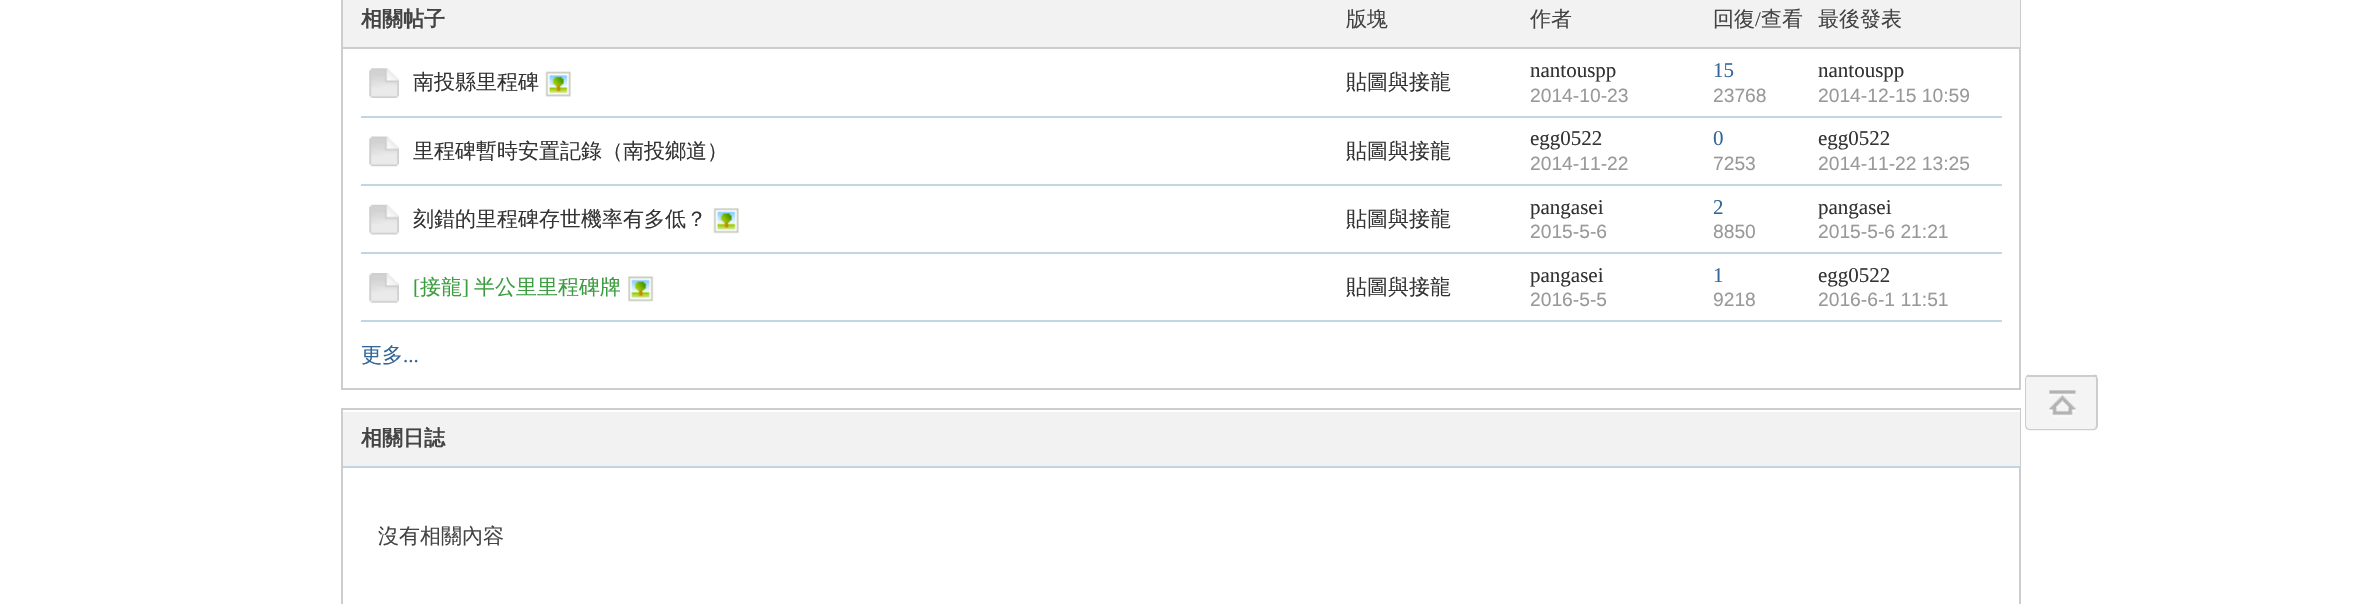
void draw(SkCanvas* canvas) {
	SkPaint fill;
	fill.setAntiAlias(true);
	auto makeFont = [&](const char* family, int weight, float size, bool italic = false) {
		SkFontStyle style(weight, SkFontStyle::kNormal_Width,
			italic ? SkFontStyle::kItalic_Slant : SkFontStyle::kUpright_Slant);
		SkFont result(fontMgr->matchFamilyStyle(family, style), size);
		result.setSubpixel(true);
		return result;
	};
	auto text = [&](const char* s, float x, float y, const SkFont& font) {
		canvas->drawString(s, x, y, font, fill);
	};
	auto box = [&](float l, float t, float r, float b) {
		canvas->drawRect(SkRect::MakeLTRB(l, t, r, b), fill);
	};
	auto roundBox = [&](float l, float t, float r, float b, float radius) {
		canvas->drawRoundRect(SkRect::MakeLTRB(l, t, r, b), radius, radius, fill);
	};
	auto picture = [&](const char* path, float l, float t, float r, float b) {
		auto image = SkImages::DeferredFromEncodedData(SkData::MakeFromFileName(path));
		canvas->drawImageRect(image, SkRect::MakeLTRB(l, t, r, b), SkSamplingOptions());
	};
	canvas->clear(0xFFFFFFFF);
	fill.setStyle(SkPaint::kStroke_Style);
	fill.setStrokeWidth(2);
	fill.setColor(0xFFCDCDCD);
	canvas->drawRect(SkRect::MakeLTRB(342, -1, 2020, 389), fill);
	fill.setStyle(SkPaint::kFill_Style);
	fill.setColor(0xFFF2F2F2);
	box(343, 0, 2020, 47);
	fill.setColor(0xFFCDCDCD);
	box(343, 47, 2020, 49);
	fill.setColor(0xFFC2D5E3);
	box(361, 116, 2002, 118);
	picture("image0.png", 369, 68, 399, 98);
	picture("image1.png", 545, 71, 571, 97);
	box(361, 184, 2002, 186);
	picture("image2.png", 369, 136, 399, 167);
	box(361, 252, 2002, 254);
	picture("image3.png", 369, 204, 399, 235);
	picture("image4.png", 713, 208, 739, 234);
	box(361, 320, 2002, 322);
	picture("image5.png", 369, 273, 399, 303);
	picture("image6.png", 628, 276, 654, 302);
	fill.setStyle(SkPaint::kStroke_Style);
	fill.setColor(0xFFCDCDCD);
	canvas->drawRect(SkRect::MakeLTRB(342, 409, 2020, 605), fill);
	fill.setStyle(SkPaint::kFill_Style);
	fill.setColor(0xFFF2F2F2);
	box(343, 412, 2020, 466);
	fill.setColor(0xFFFFFFFF);
	box(2019, 410, 2020, 412);
	fill.setColor(0xFFC2D5E3);
	box(343, 466, 2020, 468);
	fill.setColor(0xFFF4F4F4);
	roundBox(2025, 375, 2098, 431, 5);
	fill.setColor(0xFFCDCDCD);
	canvas->drawPath(SkPathBuilder(SkPathFillType::kEvenOdd).moveTo(2030, 374).lineTo(2093, 374).cubicTo(2096, 374, 2098, 377, 2098, 380).lineTo(2098, 425).cubicTo(2098, 428, 2096, 430, 2093, 430).lineTo(2030, 430).cubicTo(2027, 430, 2025, 428, 2025, 425).lineTo(2025, 380).cubicTo(2025, 377, 2027, 374, 2030, 374).close().moveTo(2030, 374).lineTo(2093, 374).cubicTo(2095, 374, 2096, 377, 2096, 380).lineTo(2096, 425).cubicTo(2096, 427, 2095, 429, 2093, 429).lineTo(2030, 429).cubicTo(2028, 429, 2026, 427, 2026, 425).lineTo(2026, 380).cubicTo(2026, 377, 2028, 374, 2030, 374).close().detach(), fill);
	picture("image7.png", 2049, 390, 2076, 417);
	box(2027, 375, 2097, 377);
	auto font1 = makeFont("WenQuanYi Zen Hei", 700, 21);
	fill.setColor(0xFF444444);
	text("相關帖子", 361, 26, font1);
	auto font2 = makeFont("WenQuanYi Zen Hei", 500, 21);
	text("版塊", 1346, 26, font2);
	text("作者", 1530, 26, font2);
	text("回復", 1713, 26, font2);
	auto font3 = makeFont("Liberation Serif", 400, 21);
	text("/", 1755, 26, font3);
	text("查看", 1761, 26, font2);
	text("最後發表", 1818, 26, font2);
	fill.setColor(0xFF333333);
	text("nantouspp", 1530, 77, font3);
	auto font4 = makeFont("Liberation Sans", 400, 19.25f);
	fill.setColor(0xFF999999);
	text("2014-10-23", 1530, 102, font4);
	fill.setColor(0xFF336699);
	text("15", 1713, 77, font3);
	fill.setColor(0xFF999999);
	text("23768", 1713, 102, font4);
	fill.setColor(0xFF333333);
	text("nantouspp", 1818, 77, font3);
	fill.setColor(0xFF999999);
	text("2014-12-15 10:59", 1818, 102, font4);
	fill.setColor(0xFF333333);
	text("南投縣里程碑", 413, 89, font2);
	text("貼圖與接龍", 1346, 89, font2);
	text("egg0522", 1530, 145, font3);
	fill.setColor(0xFF999999);
	text("2014-11-22", 1530, 170, font4);
	fill.setColor(0xFF336699);
	text("0", 1713, 145, font3);
	fill.setColor(0xFF999999);
	text("7253", 1713, 170, font4);
	fill.setColor(0xFF333333);
	text("egg0522", 1818, 145, font3);
	fill.setColor(0xFF999999);
	text("2014-11-22 13:25", 1818, 170, font4);
	fill.setColor(0xFF333333);
	text("里程碑暫時安置記錄（南投鄉道）", 413, 158, font2);
	text("貼圖與接龍", 1346, 158, font2);
	text("pangasei", 1530, 214, font3);
	fill.setColor(0xFF999999);
	text("2015-5-6", 1530, 238, font4);
	fill.setColor(0xFF336699);
	text("2", 1713, 214, font3);
	fill.setColor(0xFF999999);
	text("8850", 1713, 238, font4);
	fill.setColor(0xFF333333);
	text("pangasei", 1818, 214, font3);
	fill.setColor(0xFF999999);
	text("2015-5-6 21:21", 1818, 238, font4);
	fill.setColor(0xFF333333);
	text("刻錯的里程碑存世機率有多低？", 413, 226, font2);
	text("貼圖與接龍", 1346, 226, font2);
	text("pangasei", 1530, 282, font3);
	fill.setColor(0xFF999999);
	text("2016-5-5", 1530, 306, font4);
	fill.setColor(0xFF336699);
	text("1", 1713, 282, font3);
	fill.setColor(0xFF999999);
	text("9218", 1713, 306, font4);
	fill.setColor(0xFF333333);
	text("egg0522", 1818, 282, font3);
	fill.setColor(0xFF999999);
	text("2016-6-1 11:51", 1818, 306, font4);
	fill.setColor(0xFF3C9D40);
	text("[", 413, 294, font3);
	text("接龍", 420, 294, font2);
	text("]", 462, 294, font3);
	text("半公里里程碑牌", 474, 294, font2);
	fill.setColor(0xFF333333);
	text("貼圖與接龍", 1346, 294, font2);
	fill.setColor(0xFF336699);
	text("更多", 361, 362, font2);
	text("...", 403, 362, font3);
	fill.setColor(0xFF444444);
	text("相關日誌", 361, 445, font1);
	text("沒有相關內容", 378, 543, font2);
}
